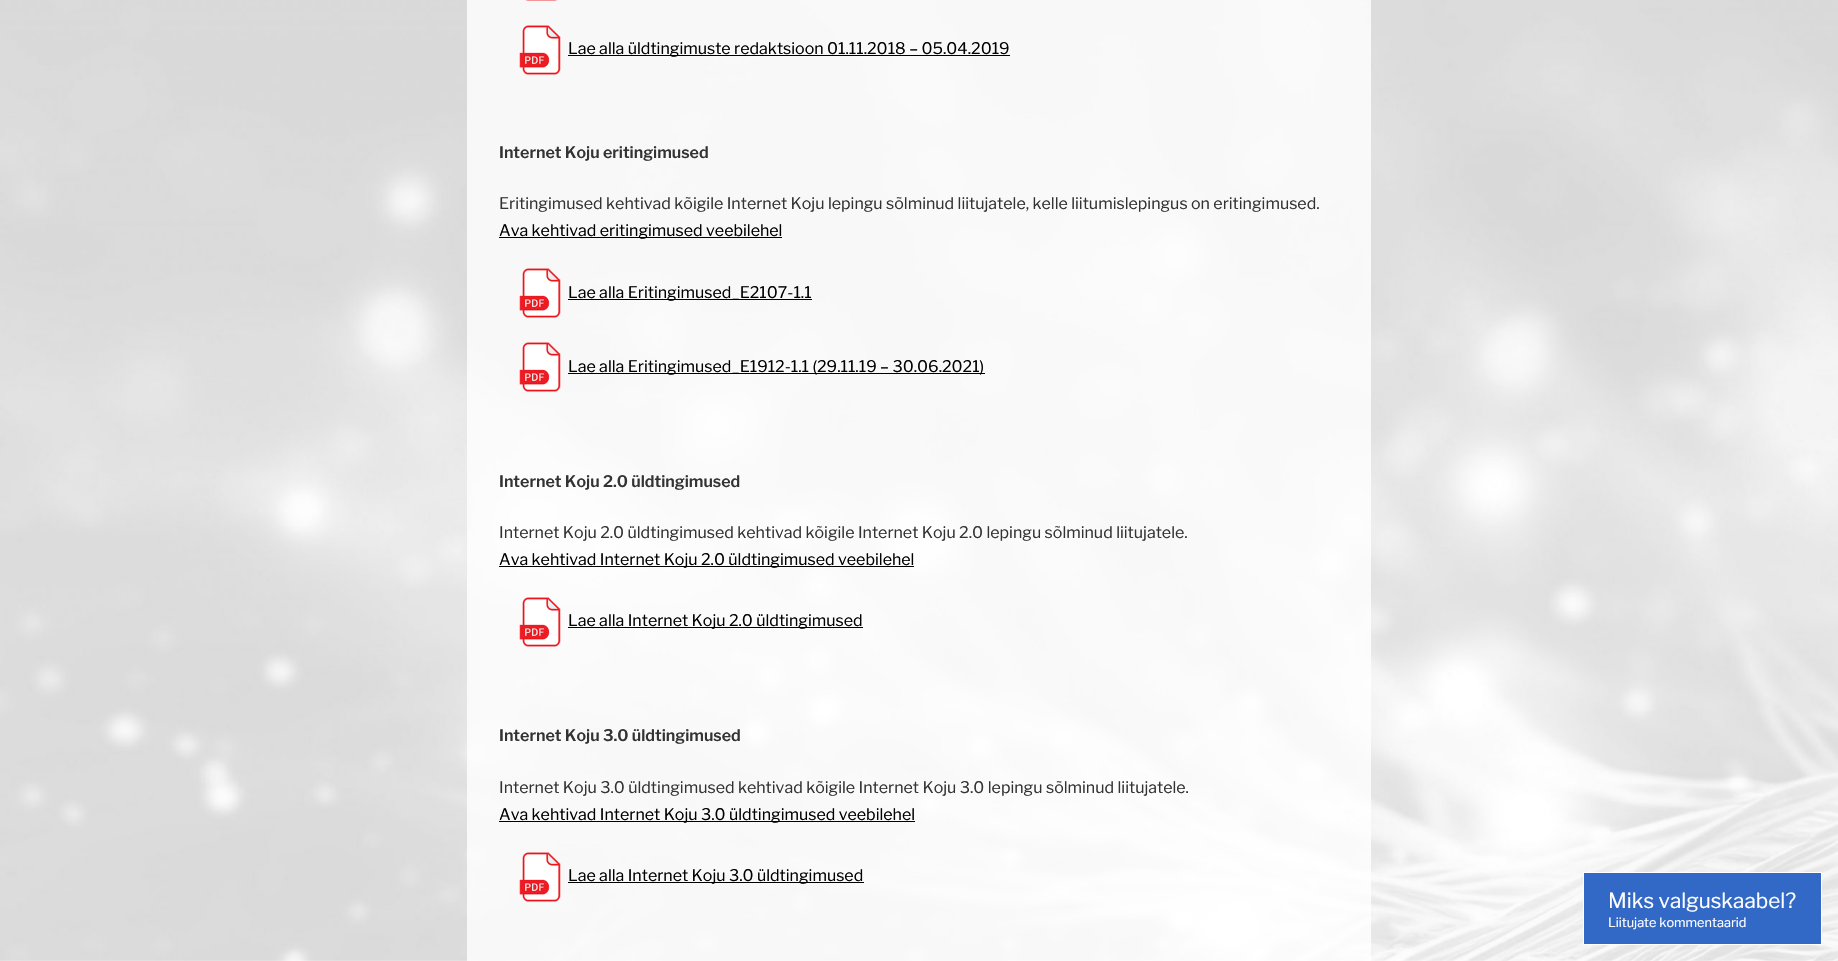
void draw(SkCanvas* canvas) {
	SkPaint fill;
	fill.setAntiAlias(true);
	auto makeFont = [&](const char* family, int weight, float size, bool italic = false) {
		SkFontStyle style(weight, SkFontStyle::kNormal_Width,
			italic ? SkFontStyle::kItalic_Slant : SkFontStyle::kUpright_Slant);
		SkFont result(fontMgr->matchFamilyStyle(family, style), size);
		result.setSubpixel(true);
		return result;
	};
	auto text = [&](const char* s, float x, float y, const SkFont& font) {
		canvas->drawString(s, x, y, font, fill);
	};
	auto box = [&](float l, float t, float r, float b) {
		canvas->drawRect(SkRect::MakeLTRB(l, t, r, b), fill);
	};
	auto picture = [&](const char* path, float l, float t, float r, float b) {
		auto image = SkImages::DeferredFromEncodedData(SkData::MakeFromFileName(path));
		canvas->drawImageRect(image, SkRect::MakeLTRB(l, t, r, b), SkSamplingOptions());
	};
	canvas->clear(0xFFFFFFFF);
	picture("image0.png", 0, 0, 1838, 961);
	fill.setColor(0xCCFFFFFF);
	box(467, 0, 1371, 107);
	picture("image1.png", 525, 0, 557, 1);
	picture("image2.png", 519, 25, 561, 75);
	fill.setColor(0xFF000000);
	box(568, 55, 1010, 56);
	fill.setColor(0xCCFFFFFF);
	box(467, 107, 1371, 961);
	fill.setColor(0xFF000000);
	box(499, 237, 782, 238);
	picture("image3.png", 519, 268, 561, 318);
	box(568, 299, 812, 300);
	picture("image4.png", 519, 342, 561, 392);
	box(568, 373, 985, 374);
	box(499, 566, 914, 567);
	picture("image5.png", 519, 597, 561, 647);
	box(568, 627, 863, 628);
	box(499, 821, 915, 822);
	picture("image6.png", 519, 852, 561, 902);
	box(568, 882, 864, 883);
	fill.setColor(0xFF3269C7);
	canvas->drawRect(SkRect::MakeLTRB(1583.5f, 872.5f, 1821.5f, 944.5f), fill);
	fill.setStyle(SkPaint::kStroke_Style);
	fill.setStrokeWidth(1);
	fill.setColor(0xFFFFFFFF);
	canvas->drawRect(SkRect::MakeLTRB(1583.5f, 872.5f, 1821.5f, 944.5f), fill);
	auto font1 = makeFont("Libre Franklin", 400, 16);
	fill.setStyle(SkPaint::kFill_Style);
	fill.setColor(0xFF000000);
	text("Lae alla üldtingimuste redaktsioon 01.11.2018 – 05.04.2019", 568, 54, font1);
	auto font2 = makeFont("Libre Franklin", 600, 16);
	fill.setColor(0xFF333333);
	text("Internet Koju eritingimused", 499, 158, font2);
	text("Eritingimused kehtivad kõigile Internet Koju lepingu sõlminud liitujatele, kelle liitumislepingus on eritingimused.", 499, 209, font1);
	fill.setColor(0xFF000000);
	text("Ava kehtivad eritingimused veebilehel", 499, 236, font1);
	text("Lae alla Eritingimused_E2107-1.1", 568, 298, font1);
	text("Lae alla Eritingimused_E1912-1.1 (29.11.19 – 30.06.2021)", 568, 372, font1);
	fill.setColor(0xFF333333);
	text("Internet Koju 2.0 üldtingimused", 499, 487, font2);
	text("Internet Koju 2.0 üldtingimused kehtivad kõigile Internet Koju 2.0 lepingu sõlminud liitujatele.", 499, 538, font1);
	fill.setColor(0xFF000000);
	text("Ava kehtivad Internet Koju 2.0 üldtingimused veebilehel", 499, 565, font1);
	text("Lae alla Internet Koju 2.0 üldtingimused", 568, 626, font1);
	fill.setColor(0xFF333333);
	text("Internet Koju 3.0 üldtingimused", 499, 741, font2);
	text("Internet Koju 3.0 üldtingimused kehtivad kõigile Internet Koju 3.0 lepingu sõlminud liitujatele.", 499, 793, font1);
	fill.setColor(0xFF000000);
	text("Ava kehtivad Internet Koju 3.0 üldtingimused veebilehel", 499, 820, font1);
	text("Lae alla Internet Koju 3.0 üldtingimused", 568, 881, font1);
	auto font3 = makeFont("Libre Franklin", 400, 20.75f);
	fill.setColor(0xFFFFFFFF);
	text("Miks valguskaabel?", 1608, 908, font3);
	auto font4 = makeFont("Libre Franklin", 400, 12.75f);
	text("Liitujate kommentaarid", 1608, 927, font4);
}
